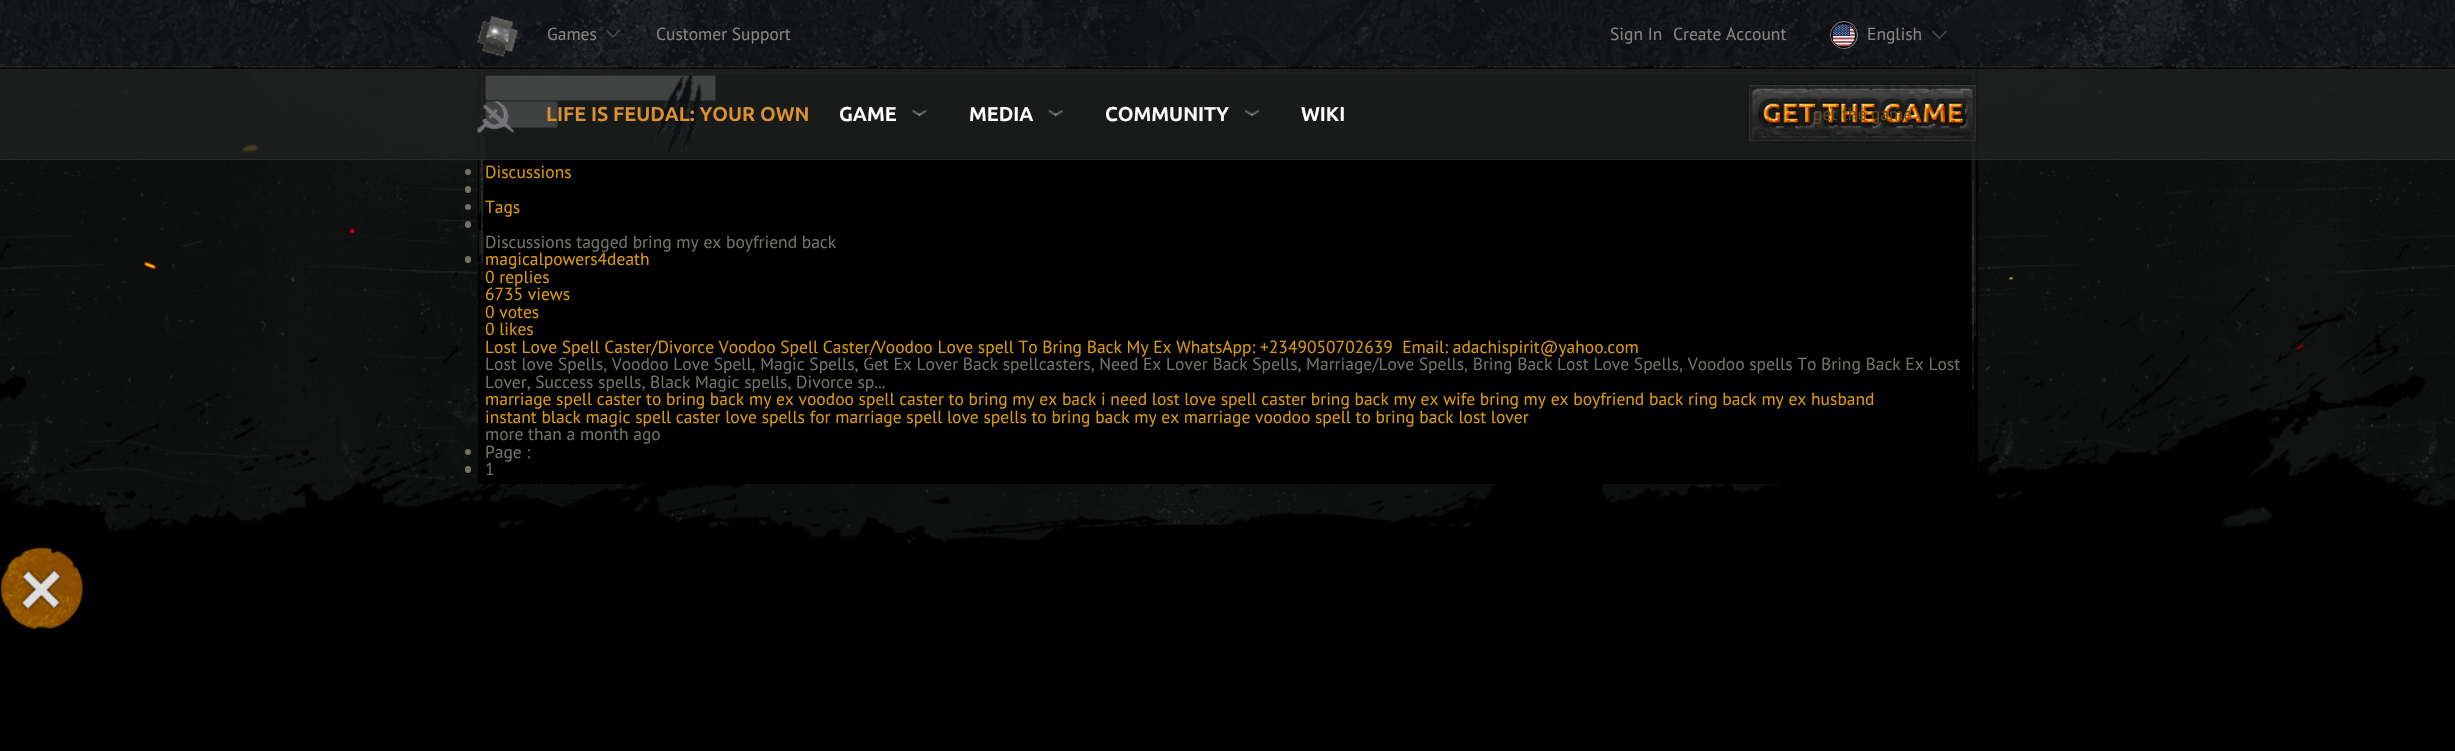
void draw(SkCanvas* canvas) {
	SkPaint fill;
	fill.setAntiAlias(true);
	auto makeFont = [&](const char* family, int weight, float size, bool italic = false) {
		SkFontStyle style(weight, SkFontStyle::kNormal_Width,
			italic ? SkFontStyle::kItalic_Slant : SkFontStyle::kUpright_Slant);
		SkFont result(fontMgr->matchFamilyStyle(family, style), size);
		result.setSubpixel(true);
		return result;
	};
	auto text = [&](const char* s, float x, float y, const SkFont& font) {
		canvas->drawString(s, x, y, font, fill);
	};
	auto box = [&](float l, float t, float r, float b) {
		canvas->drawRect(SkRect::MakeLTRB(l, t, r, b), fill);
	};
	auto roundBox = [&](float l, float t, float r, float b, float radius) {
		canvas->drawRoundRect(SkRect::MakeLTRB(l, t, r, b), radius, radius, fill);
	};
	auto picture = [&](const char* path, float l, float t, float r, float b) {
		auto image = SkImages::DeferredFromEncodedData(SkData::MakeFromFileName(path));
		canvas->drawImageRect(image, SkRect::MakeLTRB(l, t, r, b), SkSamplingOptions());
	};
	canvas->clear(0xFF000000);
	picture("image0.png", 0, 0, 2455, 69);
	picture("image1.png", 477, 16, 518, 57);
	picture("image2.png", 606, 29, 621, 38);
	fill.setStyle(SkPaint::kStroke_Style);
	fill.setStrokeWidth(1);
	fill.setColor(0xFF808080);
	canvas->drawCircle(1844, 35, 13.5f, fill);
	picture("image3.png", 1833, 24, 1855, 46);
	fill.setColor(0xFF000000);
	canvas->drawCircle(1843.5f, 35.5f, 12, fill);
	picture("image4.png", 1932, 31, 1947, 39);
	picture("image15.png", 0, 547, 83, 629);
	picture("image11.png", 0, 68, 2455, 548);
	fill.setStyle(SkPaint::kFill_Style);
	box(479, 69, 1978, 484);
	picture("image12.png", 477, 69, 1978, 75);
	box(1976, 69, 1977, 75);
	box(478, 69, 479, 484);
	fill.setColor(0xFFFFFFFF);
	canvas->drawRoundRect(SkRect::MakeLTRB(485.5f, 75.5f, 715.5f, 100.5f), 2, 2, fill);
	fill.setStyle(SkPaint::kStroke_Style);
	fill.setColor(0xFF767676);
	canvas->drawRoundRect(SkRect::MakeLTRB(485.5f, 75.5f, 715.5f, 100.5f), 2, 2, fill);
	fill.setStyle(SkPaint::kFill_Style);
	fill.setColor(0xFFEFEFEF);
	canvas->drawRoundRect(SkRect::MakeLTRB(485.5f, 101.5f, 557.5f, 127.5f), 2, 2, fill);
	fill.setStyle(SkPaint::kStroke_Style);
	fill.setColor(0xFF767676);
	canvas->drawRoundRect(SkRect::MakeLTRB(485.5f, 101.5f, 557.5f, 127.5f), 2, 2, fill);
	fill.setStyle(SkPaint::kFill_Style);
	fill.setColor(0xFF72726A);
	canvas->drawCircle(468, 172, 3, fill);
	roundBox(465, 186, 471, 193, 3);
	canvas->drawCircle(468, 207, 3, fill);
	roundBox(465, 221, 471, 228, 3);
	roundBox(465, 256, 471, 263, 3);
	canvas->drawCircle(468, 452, 3, fill);
	roundBox(465, 466, 471, 473, 3);
	auto font1 = makeFont("PT Sans", 400, 17.5f);
	fill.setColor(0xFF858683);
	text("Games", 547, 40, font1);
	text("Customer Support", 656, 40, font1);
	text("Sign In", 1610, 40, font1);
	text("Create Account", 1673, 40, font1);
	text("English", 1867, 40, font1);
	fill.setColor(0xFFDB9909);
	text("Discussions", 485, 178, font1);
	text("Tags", 485, 213, font1);
	fill.setColor(0xFF72726A);
	text("Discussions tagged bring my ex boyfriend back", 485, 248, font1);
	fill.setColor(0xFFDB9909);
	text("magicalpowers4death", 485, 265, font1);
	text("0 replies", 485, 283, font1);
	text("6735 views", 485, 300, font1);
	text("0 votes", 485, 318, font1);
	text("0 likes", 485, 335, font1);
	text("Lost Love Spell Caster/Divorce Voodoo Spell Caster/Voodoo Love spell To Bring Back My Ex WhatsApp: +2349050702639  Email: adachispirit@yahoo.com", 485, 353, font1);
	fill.setColor(0xFF72726A);
	text("Lost love Spells, Voodoo Love Spell, Magic Spells, Get Ex Lover Back spellcasters, Need Ex Lover Back Spells, Marriage/Love Spells, Bring Back Lost Love Spells, Voodoo spells To Bring Back Ex Lost", 485, 370, font1);
	picture("image13.png", 478, 70, 603, 359);
	text("Lover, Success spells, Black Magic spells, Divorce sp...", 485, 388, font1);
	fill.setColor(0xFFDB9909);
	text("marriage spell caster to bring back my ex voodoo spell caster to bring my ex back i need lost love spell caster bring back my ex wife bring my ex boyfriend back ring back my ex husband", 485, 405, font1);
	picture("image14.png", 1852, 70, 1977, 473);
	fill.setColor(0xD61E1F1F);
	box(0, 69, 2455, 159);
	picture("image9.png", 1244, 109, 1259, 117);
	picture("image8.png", 1048, 109, 1063, 117);
	picture("image7.png", 912, 109, 927, 117);
	picture("image6.png", 655, 72, 702, 155);
	auto font2 = makeFont("Ubuntu", 700, 20);
	fill.setColor(0xFFD99134);
	text("LIFE IS FEUDAL: YOUR OWN", 546, 121, font2);
	fill.setColor(0xFFFFFFFF);
	text("WIKI", 1301, 121, font2);
	text("COMMUNITY", 1105, 121, font2);
	text("MEDIA", 969, 121, font2);
	text("GAME", 839, 121, font2);
	picture("image5.png", 477, 101, 514, 133);
	picture("image10.png", 1747, 84, 1978, 143);
	fill.setColor(0xFF65451D);
	text("get the game", 1813, 120, font1);
	fill.setColor(0xFF292B2A);
	box(0, 159, 2455, 160);
	fill.setColor(0xFFDB9909);
	text("instant black magic spell caster love spells for marriage spell love spells to bring back my ex marriage voodoo spell to bring back lost lover", 485, 423, font1);
	fill.setColor(0xFF72726A);
	text("more than a month ago", 485, 440, font1);
	text("Page :", 485, 458, font1);
	text("1", 485, 475, font1);
}
